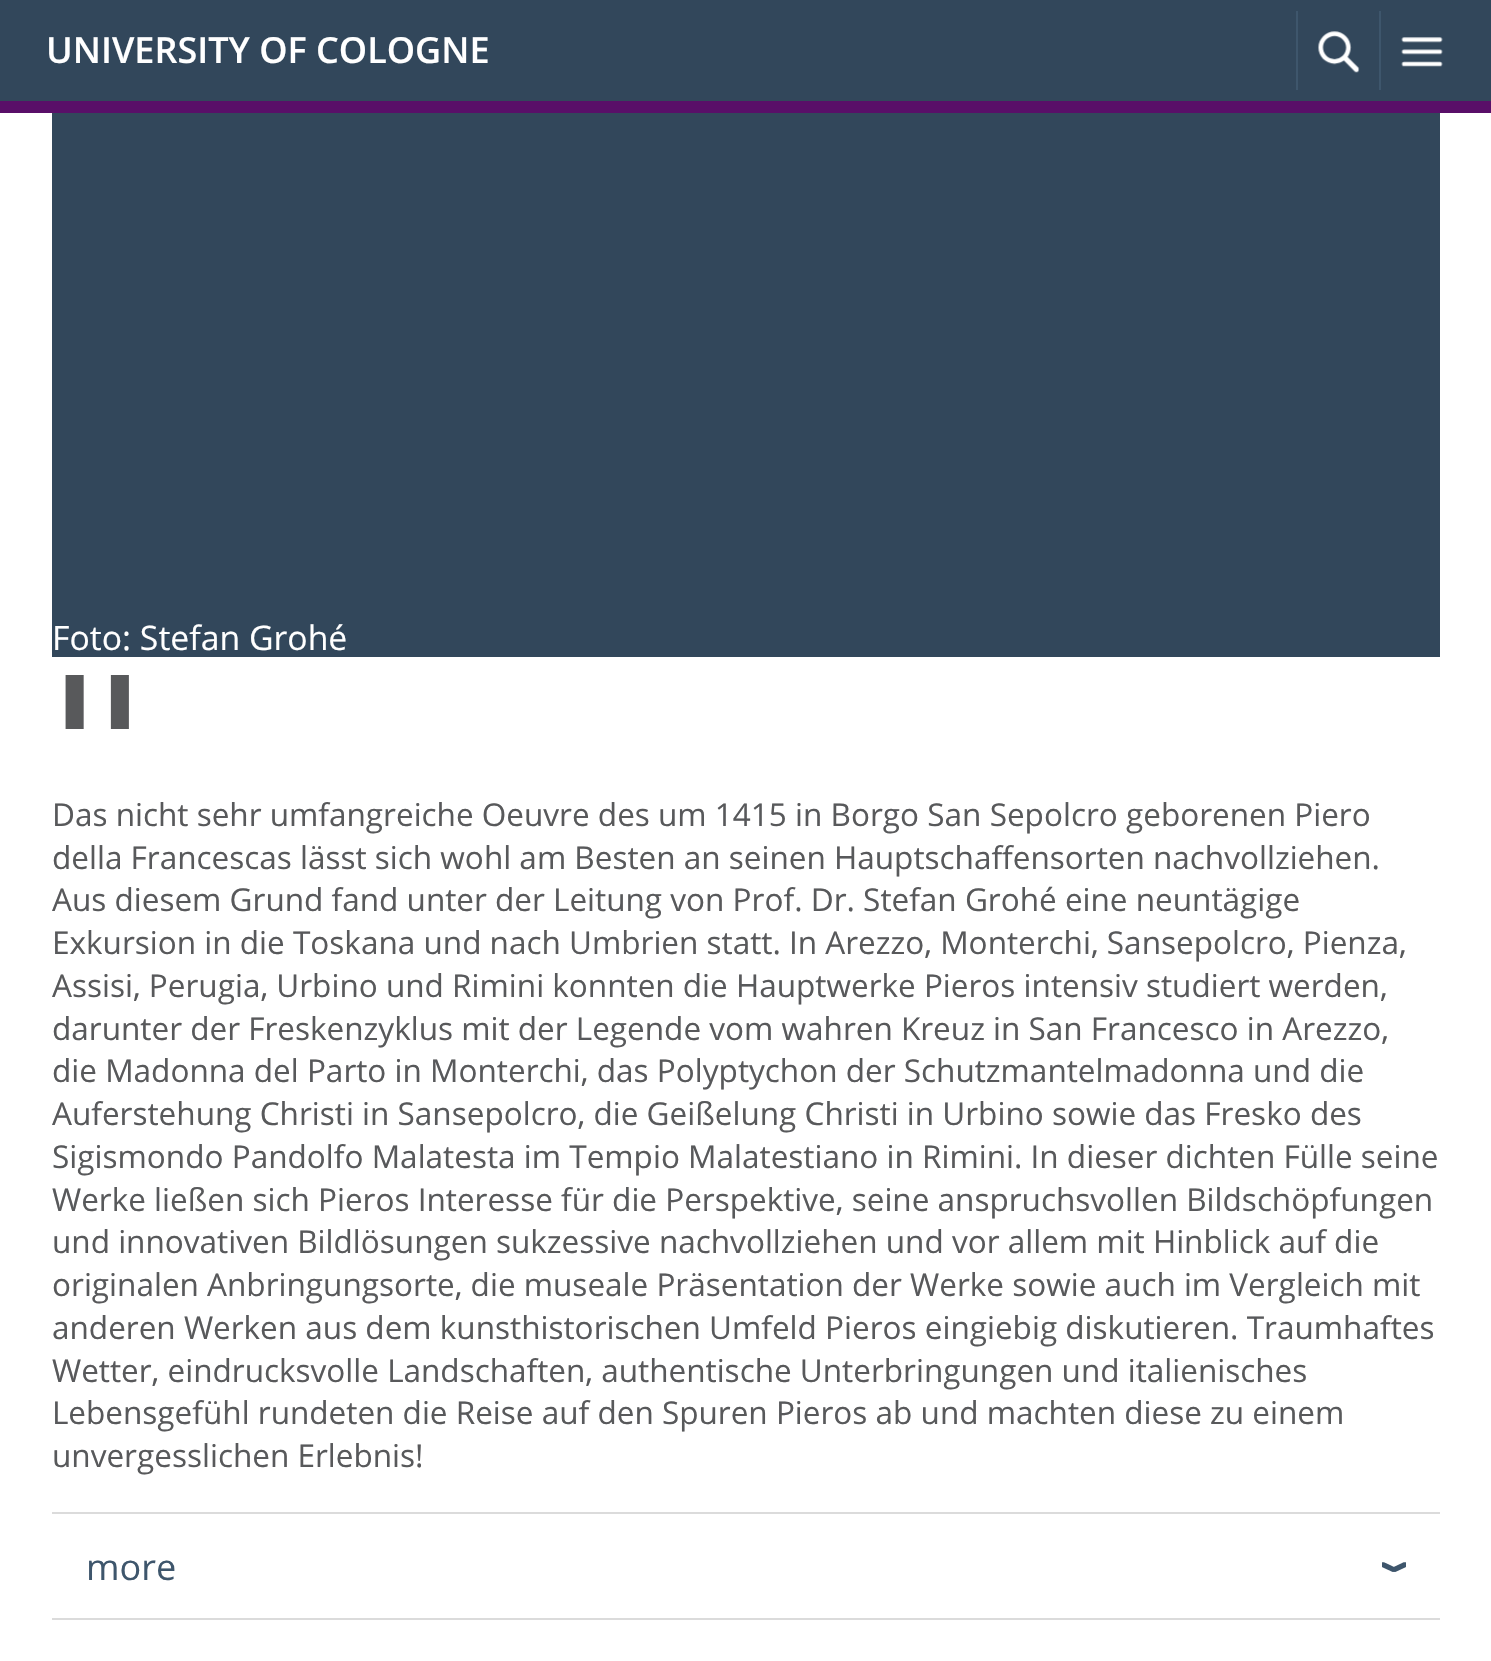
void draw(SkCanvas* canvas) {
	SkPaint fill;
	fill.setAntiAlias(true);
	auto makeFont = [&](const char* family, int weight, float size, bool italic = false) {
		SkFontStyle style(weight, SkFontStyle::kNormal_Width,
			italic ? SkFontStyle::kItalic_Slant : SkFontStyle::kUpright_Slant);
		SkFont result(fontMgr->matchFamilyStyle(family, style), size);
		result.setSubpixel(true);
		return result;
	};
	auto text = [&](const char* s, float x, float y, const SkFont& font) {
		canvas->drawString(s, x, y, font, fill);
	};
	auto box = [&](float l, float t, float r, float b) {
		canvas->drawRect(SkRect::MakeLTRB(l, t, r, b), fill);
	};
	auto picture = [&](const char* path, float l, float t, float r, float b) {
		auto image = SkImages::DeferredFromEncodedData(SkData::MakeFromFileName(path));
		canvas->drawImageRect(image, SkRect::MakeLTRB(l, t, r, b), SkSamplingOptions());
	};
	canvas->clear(0xFFFFFFFF);
	fill.setColor(0xFF32475B);
	box(0, 0, 1491, 101);
	fill.setColor(0xFF590F68);
	box(0, 101, 1491, 113);
	fill.setColor(0xFF3E566C);
	box(1296, 11, 1298, 90);
	picture("image0.png", 1318, 31, 1360, 73);
	box(1379, 11, 1381, 90);
	picture("image1.png", 1401, 37, 1443, 67);
	fill.setColor(0xFF32475B);
	box(52, 113, 1440, 657);
	fill.setColor(0xFFDBDBDB);
	box(52, 1512, 1440, 1514);
	box(52, 1618, 1440, 1620);
	picture("image2.png", 1382, 1562, 1406, 1572);
	auto font1 = makeFont("Open Sans", 600, 36);
	fill.setColor(0xFFFFFFFF);
	text("UNIVERSITY OF COLOGNE", 46, 63, font1);
	auto font2 = makeFont("Open Sans", 400, 33.75f);
	text("Foto: Stefan Grohé", 52, 650, font2);
	auto font3 = makeFont("DejaVu Sans", 400, 54);
	fill.setColor(0xFF58595B);
	text("❚❚", 52, 716, font3);
	auto font4 = makeFont("Open Sans", 400, 31.5f);
	text("Das nicht sehr umfangreiche Oeuvre des um 1415 in Borgo San Sepolcro geborenen Piero", 52, 826, font4);
	text("della Francescas lässt sich wohl am Besten an seinen Hauptschaffensorten nachvollziehen.", 52, 869, font4);
	text("Aus diesem Grund fand unter der Leitung von Prof. Dr. Stefan Grohé eine neuntägige", 52, 911, font4);
	text("Exkursion in die Toskana und nach Umbrien statt. In Arezzo, Monterchi, Sansepolcro, Pienza,", 52, 954, font4);
	text("Assisi, Perugia, Urbino und Rimini konnten die Hauptwerke Pieros intensiv studiert werden,", 52, 997, font4);
	text("darunter der Freskenzyklus mit der Legende vom wahren Kreuz in San Francesco in Arezzo,", 52, 1040, font4);
	text("die Madonna del Parto in Monterchi, das Polyptychon der Schutzmantelmadonna und die", 52, 1082, font4);
	text("Auferstehung Christi in Sansepolcro, die Geißelung Christi in Urbino sowie das Fresko des", 52, 1125, font4);
	text("Sigismondo Pandolfo Malatesta im Tempio Malatestiano in Rimini. In dieser dichten Fülle seine", 52, 1168, font4);
	text("Werke ließen sich Pieros Interesse für die Perspektive, seine anspruchsvollen Bildschöpfungen", 52, 1211, font4);
	text("und innovativen Bildlösungen sukzessive nachvollziehen und vor allem mit Hinblick auf die", 52, 1253, font4);
	text("originalen Anbringungsorte, die museale Präsentation der Werke sowie auch im Vergleich mit", 52, 1296, font4);
	text("anderen Werken aus dem kunsthistorischen Umfeld Pieros eingiebig diskutieren. Traumhaftes", 52, 1339, font4);
	text("Wetter, eindrucksvolle Landschaften, authentische Unterbringungen und italienisches", 52, 1382, font4);
	text("Lebensgefühl rundeten die Reise auf den Spuren Pieros ab und machten diese zu einem", 52, 1424, font4);
	text("unvergesslichen Erlebnis!", 52, 1467, font4);
	auto font5 = makeFont("Open Sans", 400, 36);
	fill.setColor(0xFF3E566C);
	text("more", 86, 1580, font5);
}
